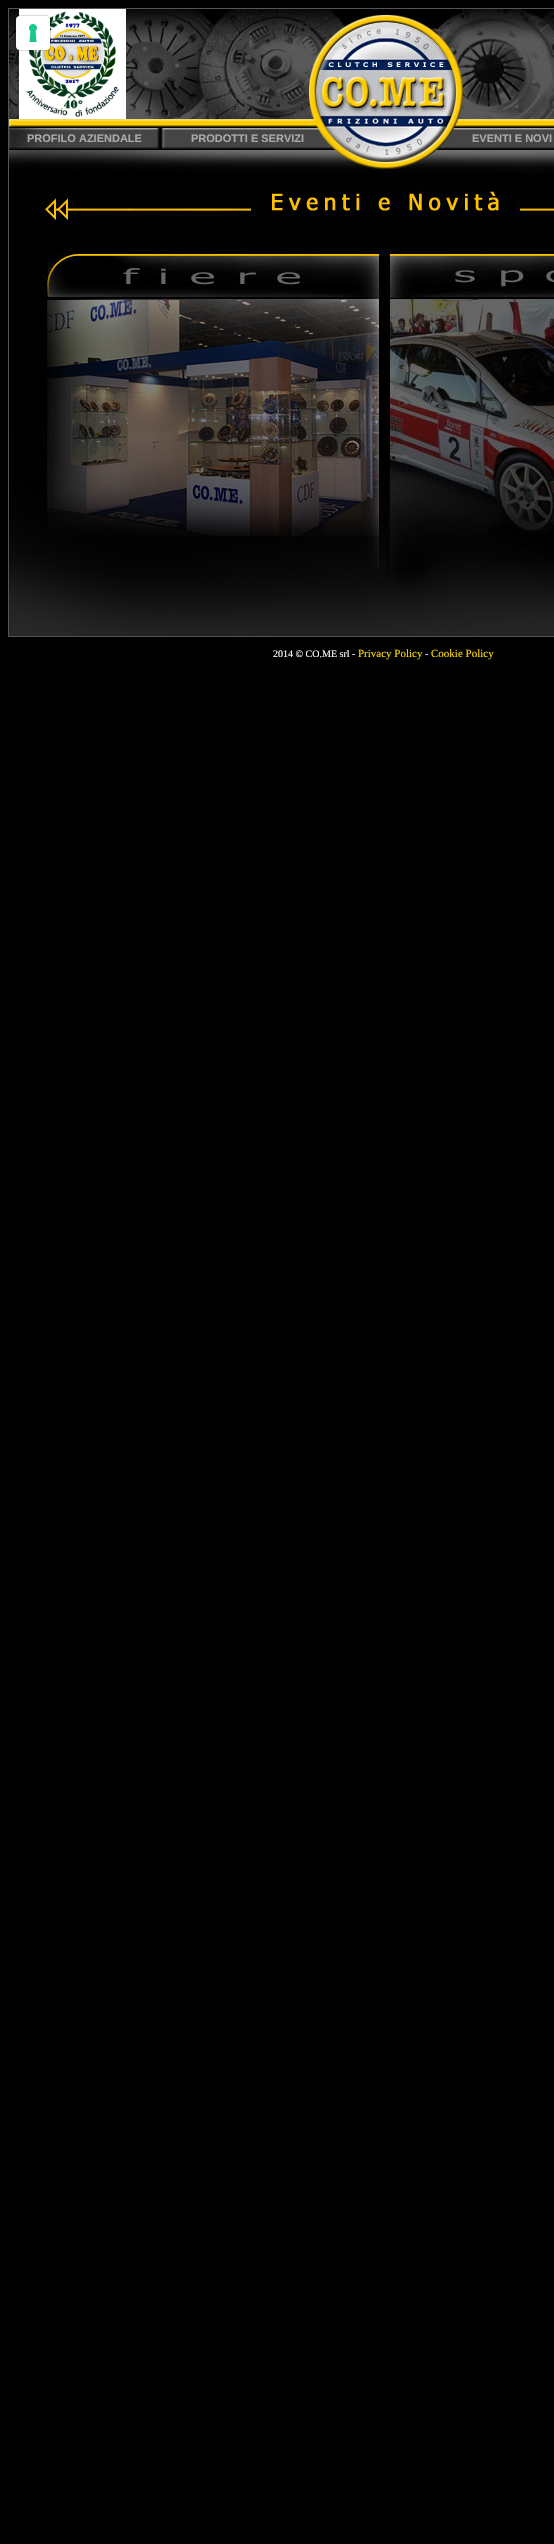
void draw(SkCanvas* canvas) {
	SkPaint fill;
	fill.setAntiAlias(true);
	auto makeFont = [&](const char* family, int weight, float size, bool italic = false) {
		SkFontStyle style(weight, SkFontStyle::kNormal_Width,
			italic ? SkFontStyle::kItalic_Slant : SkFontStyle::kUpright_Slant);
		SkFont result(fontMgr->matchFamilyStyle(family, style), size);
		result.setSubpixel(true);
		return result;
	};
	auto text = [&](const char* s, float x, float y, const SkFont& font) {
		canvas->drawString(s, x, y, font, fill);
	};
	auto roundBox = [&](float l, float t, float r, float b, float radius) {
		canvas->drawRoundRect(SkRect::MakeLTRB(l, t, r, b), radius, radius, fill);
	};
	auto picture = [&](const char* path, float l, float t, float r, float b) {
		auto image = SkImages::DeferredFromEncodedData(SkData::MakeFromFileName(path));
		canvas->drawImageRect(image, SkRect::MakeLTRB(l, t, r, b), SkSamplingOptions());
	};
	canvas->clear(0xFF000000);
	fill.setStyle(SkPaint::kStroke_Style);
	fill.setStrokeWidth(1);
	fill.setColor(0xFF555555);
	canvas->drawRect(SkRect::MakeLTRB(8.5f, 8.5f, 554.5f, 636.5f), fill);
	picture("image1.png", 9, 9, 554, 170);
	picture("image2.png", 19, 9, 126, 119);
	fill.setColor(0x26000000);
	canvas->drawRoundRect(SkRect::MakeLTRB(15.5f, 15.5f, 50.5f, 50.5f), 4.5f, 4.5f, fill);
	fill.setStyle(SkPaint::kFill_Style);
	fill.setColor(0xFFFFFFFF);
	roundBox(16, 16, 50, 50, 4);
	picture("image0.png", 29, 24, 37, 42);
	picture("image3.png", 231, 41, 457, 45);
	picture("image4.png", 9, 170, 554, 636);
	auto font1 = makeFont("Liberation Sans", 700, 11);
	fill.setColor(0xFFAAAAAA);
	text("PROFILO AZIENDALE", 27, 142, font1);
	text("PRODOTTI E SERVIZI", 191, 142, font1);
	text("EVENTI E NOVI", 472, 142, font1);
	auto font2 = makeFont("Liberation Serif", 400, 10);
	fill.setColor(0xFFFFFFFF);
	text("2014 © CO.ME srl -", 273, 657, font2);
	auto font3 = makeFont("Liberation Serif", 400, 11);
	fill.setColor(0xFFFFD700);
	text("Privacy Policy", 358, 657, font3);
	fill.setColor(0xFFFFFFFF);
	text("-", 425, 657, font2);
	fill.setColor(0xFFFFD700);
	text("Cookie Policy", 431, 657, font3);
}
